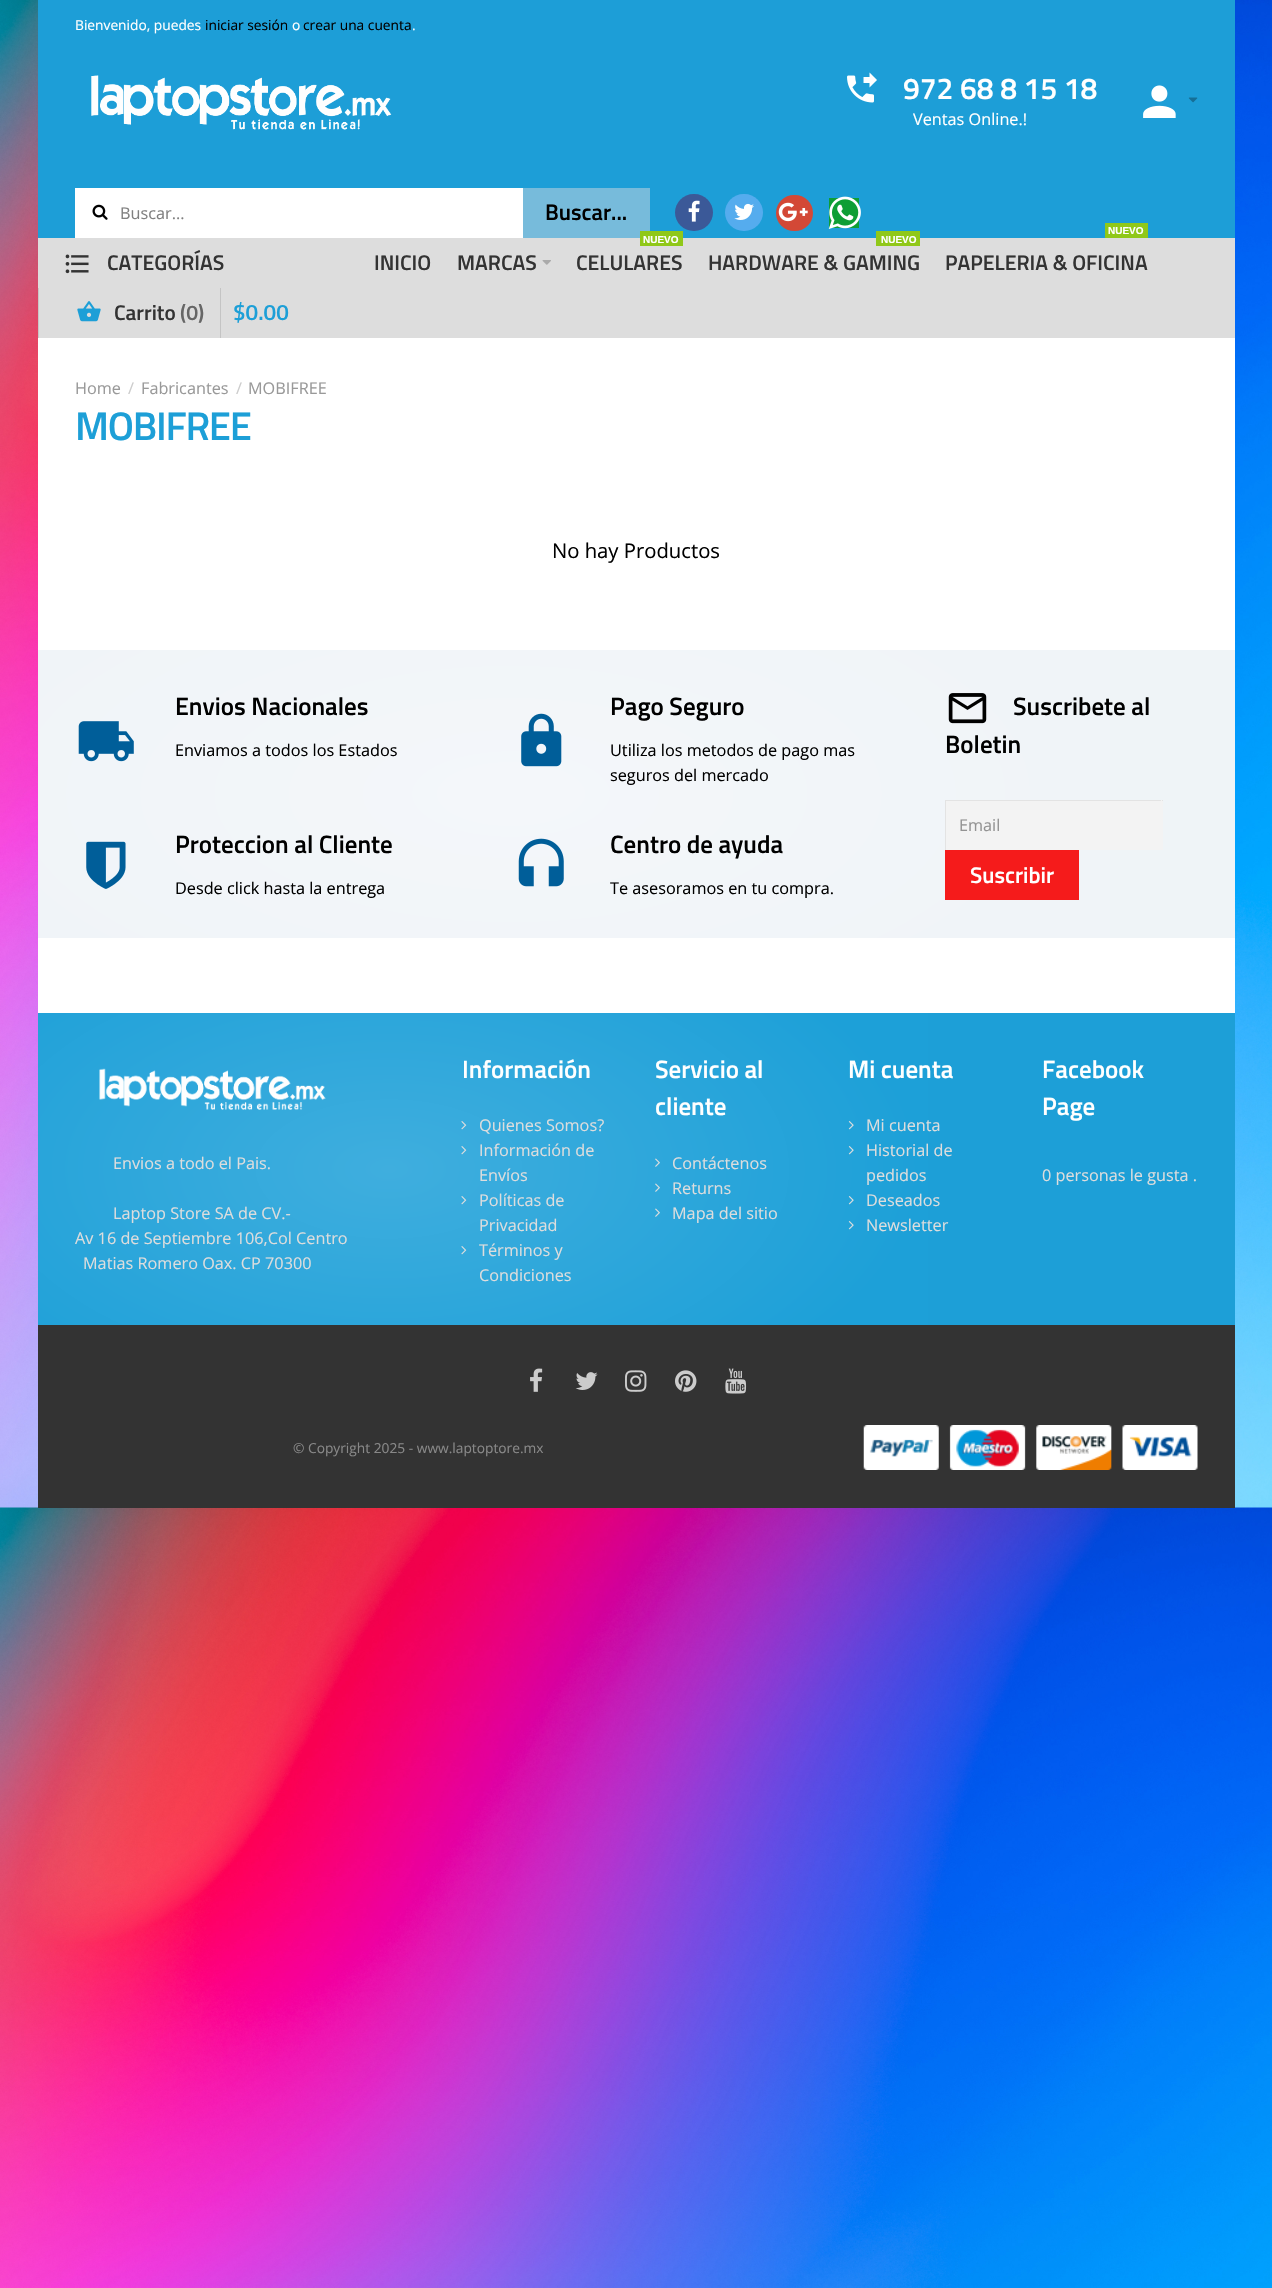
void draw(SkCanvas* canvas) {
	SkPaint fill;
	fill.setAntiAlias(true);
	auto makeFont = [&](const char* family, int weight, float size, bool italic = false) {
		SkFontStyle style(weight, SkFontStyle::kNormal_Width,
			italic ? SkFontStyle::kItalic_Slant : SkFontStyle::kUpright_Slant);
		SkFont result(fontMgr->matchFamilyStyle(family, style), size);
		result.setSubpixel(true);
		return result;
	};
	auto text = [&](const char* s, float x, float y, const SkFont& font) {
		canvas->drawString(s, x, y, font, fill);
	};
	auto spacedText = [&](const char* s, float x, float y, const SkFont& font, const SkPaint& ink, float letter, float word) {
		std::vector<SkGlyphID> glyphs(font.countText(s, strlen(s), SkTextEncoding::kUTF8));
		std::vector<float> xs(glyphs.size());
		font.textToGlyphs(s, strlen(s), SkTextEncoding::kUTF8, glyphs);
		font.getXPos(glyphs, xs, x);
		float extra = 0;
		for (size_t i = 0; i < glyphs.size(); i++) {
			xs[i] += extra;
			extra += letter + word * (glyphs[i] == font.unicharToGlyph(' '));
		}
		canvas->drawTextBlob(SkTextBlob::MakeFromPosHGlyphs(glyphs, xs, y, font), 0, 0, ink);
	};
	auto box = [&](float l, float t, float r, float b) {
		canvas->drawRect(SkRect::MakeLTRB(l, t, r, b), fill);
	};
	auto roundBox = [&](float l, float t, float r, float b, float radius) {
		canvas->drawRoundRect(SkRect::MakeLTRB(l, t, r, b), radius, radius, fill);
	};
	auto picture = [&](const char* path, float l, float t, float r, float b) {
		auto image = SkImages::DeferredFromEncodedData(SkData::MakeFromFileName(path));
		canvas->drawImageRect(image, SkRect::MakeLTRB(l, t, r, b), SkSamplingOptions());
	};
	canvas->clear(0xFFFFFFFF);
	picture("image0.png", 0, 0, 1272, 2288);
	fill.setColor(0xFFFFFFFF);
	box(38, 338, 1235, 1013);
	fill.setColor(0xFF1D9ED7);
	box(38, 0, 1235, 238);
	picture("image1.png", 91, 75, 392, 130);
	picture("image2.png", 847, 72, 877, 103);
	picture("image3.png", 1143, 85, 1176, 118);
	picture("image4.png", 1188, 97, 1198, 103);
	fill.setColor(0xFFFFFFFF);
	box(75, 188, 523, 238);
	picture("image5.png", 92, 204, 108, 220);
	fill.setColor(0xFF77BBDB);
	box(523, 188, 650, 238);
	fill.setColor(0xFF3B5998);
	roundBox(675, 194, 713, 231, 18.5f);
	picture("image6.png", 688, 200, 700, 222);
	fill.setColor(0xFF55ACEE);
	roundBox(725, 194, 763, 231, 18.5f);
	picture("image7.png", 734, 203, 754, 220);
	fill.setColor(0xFFD34836);
	roundBox(776, 195, 813, 231, 18);
	picture("image8.png", 778, 202, 808, 222);
	fill.setColor(0xFF0E9E35);
	box(829, 198, 859, 228);
	picture("image9.png", 828, 196, 861, 229);
	fill.setColor(0xFFDDDDDD);
	box(38, 238, 1235, 338);
	picture("image10.png", 65, 254, 89, 274);
	picture("image11.png", 542, 260, 551, 265);
	fill.setColor(0xFF90C819);
	box(640, 231, 683, 246);
	box(876, 231, 920, 246);
	box(1105, 223, 1148, 238);
	fill.setColor(0xFFC7C7C7);
	box(38, 288, 39, 338);
	picture("image12.png", 77, 301, 101, 322);
	fill.setColor(0xFFC4C4C4);
	box(220, 288, 221, 338);
	fill.setColor(0xFFEFF4F7);
	box(1110, 650, 1235, 938);
	{
		const SkColor colors[] = {0xFFF4F7FA, 0xFFF0F4F8};
		const float stops[] = {0, 0.7f};
		SkMatrix m = SkMatrix::Translate(511, 794).preScale(847, 366);
		fill.setShader(SkGradientShader::MakeRadial({0, 0}, 1, colors, stops, 2, SkTileMode::kClamp, 0, &m));
		fill.setAlpha(255);
	}
	box(38, 650, 1110, 938);
	picture("image13.png", 78, 721, 134, 762);
	picture("image14.png", 521, 713, 562, 767);
	picture("image15.png", 86, 841, 126, 889);
	picture("image16.png", 518, 838, 564, 887);
	picture("image17.png", 948, 693, 987, 724);
	fill.setShader(nullptr);
	fill.setColor(0xFFF3F3F3);
	box(946, 801, 1163, 850);
	fill.setColor(0xFFE3E3E3);
	box(945, 800, 1163, 801);
	fill.setColor(0xFFF3F3F3);
	box(1161, 800, 1162, 801);
	fill.setColor(0xFFE3E3E3);
	box(945, 800, 946, 850);
	fill.setColor(0xFFF51B1B);
	box(945, 850, 1079, 900);
	fill.setColor(0xFF1D9FD7);
	box(928, 1013, 1235, 1325);
	{
		const SkColor colors[] = {0xFF3FAEDE, 0xFF1DA0D8};
		const float stops[] = {0, 0.7f};
		SkMatrix m = SkMatrix::Translate(389, 1169).preScale(762, 398);
		fill.setShader(SkGradientShader::MakeRadial({0, 0}, 1, colors, stops, 2, SkTileMode::kClamp, 0, &m));
		fill.setAlpha(255);
	}
	box(38, 1013, 928, 1325);
	picture("image18.png", 461, 1121, 467, 1130);
	picture("image19.png", 461, 1146, 467, 1155);
	picture("image20.png", 461, 1196, 467, 1205);
	picture("image21.png", 461, 1246, 467, 1255);
	picture("image22.png", 655, 1158, 660, 1167);
	picture("image22.png", 655, 1183, 660, 1192);
	picture("image23.png", 655, 1208, 660, 1217);
	picture("image24.png", 848, 1121, 854, 1130);
	picture("image25.png", 848, 1146, 854, 1155);
	picture("image26.png", 848, 1196, 854, 1205);
	picture("image27.png", 848, 1221, 854, 1230);
	picture("image28.png", 99, 1068, 326, 1110);
	fill.setShader(nullptr);
	fill.setColor(0xFF333333);
	box(38, 1325, 1235, 1508);
	picture("image29.png", 530, 1368, 543, 1392);
	picture("image30.png", 575, 1372, 598, 1390);
	picture("image31.png", 625, 1370, 647, 1392);
	picture("image32.png", 675, 1370, 697, 1392);
	picture("image33.png", 725, 1368, 747, 1394);
	picture("image34.png", 863, 1425, 1198, 1470);
	auto font1 = makeFont("Open Sans", 400, 13.75f);
	fill.setColor(0xFFFFFFFF);
	text("Bienvenido, puedes", 75, 30, font1);
	fill.setColor(0xFF000000);
	text("iniciar sesión", 205, 30, font1);
	fill.setColor(0xFFFFFFFF);
	text("o", 292, 30, font1);
	fill.setColor(0xFF000000);
	text("crear una cuenta", 303, 30, font1);
	fill.setColor(0xFFFFFFFF);
	text(".", 412, 30, font1);
	auto font2 = makeFont("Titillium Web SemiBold", 600, 30);
	text("972 68 8 15 18", 903, 99, font2);
	auto font3 = makeFont("Open Sans", 400, 16.25f);
	text("Ventas Online.!", 913, 125, font3);
	fill.setColor(0xFF808080);
	text("Buscar...", 120, 219, font3);
	auto font4 = makeFont("Titillium Web SemiBold", 600, 22.5f);
	fill.setColor(0xFF000000);
	text("Buscar...", 545, 220, font4);
	auto font5 = makeFont("Titillium Web SemiBold", 600, 21.25f);
	fill.setColor(0xFF333333);
	text("CATEGORÍAS", 107, 270, font5);
	text("INICIO", 374, 270, font5);
	text("MARCAS", 457, 270, font5);
	auto font6 = makeFont("Liberation Sans", 700, 10);
	fill.setColor(0xFFFFFFFF);
	text("NUEVO", 643, 243, font6);
	fill.setColor(0xFF333333);
	text("CELULARES", 576, 270, font5);
	fill.setColor(0xFFFFFFFF);
	text("NUEVO", 881, 243, font6);
	fill.setColor(0xFF333333);
	text("HARDWARE & GAMING", 708, 270, font5);
	fill.setColor(0xFFFFFFFF);
	text("NUEVO", 1108, 234, font6);
	fill.setColor(0xFF333333);
	text("PAPELERIA & OFICINA", 945, 270, font5);
	text("Carrito", 114, 320, font5);
	fill.setColor(0xFF666666);
	text("(0)", 180, 320, font5);
	fill.setColor(0xFF1D9FD7);
	text("$0.00", 233, 320, font4);
	fill.setColor(0xFF999999);
	text("Home", 75, 394, font3);
	fill.setColor(0xFFCCCCCC);
	text("/", 128, 394, font3);
	fill.setColor(0xFF999999);
	text("Fabricantes", 141, 394, font3);
	fill.setColor(0xFFCCCCCC);
	text("/", 236, 394, font3);
	fill.setColor(0xFF999999);
	text("MOBIFREE", 248, 394, font3);
	auto font7 = makeFont("Titillium Web SemiBold", 600, 40);
	fill.setColor(0xFF1D9FD7);
	spacedText("MOBIFREE", 75, 440, font7, fill, -1.25f, 0);
	auto font8 = makeFont("Open Sans", 400, 20.25f);
	fill.setColor(0xFF000000);
	text("No hay Productos", 552, 558, font8);
	auto font9 = makeFont("Titillium Web SemiBold", 600, 25);
	text("Envios Nacionales", 175, 715, font9);
	text("Enviamos a todos los Estados", 175, 756, font3);
	text("Pago Seguro", 610, 715, font9);
	text("Utiliza los metodos de pago mas", 610, 756, font3);
	text("seguros del mercado", 610, 781, font3);
	text("Proteccion al Cliente", 175, 853, font9);
	text("Desde click hasta la entrega", 175, 894, font3);
	text("Centro de ayuda", 610, 853, font9);
	text("Te asesoramos en tu compra.", 610, 894, font3);
	text("Suscribete al", 1013, 715, font9);
	text("Boletin", 945, 753, font9);
	fill.setColor(0xFF939393);
	text("Email", 959, 831, font3);
	fill.setColor(0xFFFFFFFF);
	text("Suscribir", 970, 883, font4);
	text("Información", 462, 1078, font9);
	fill.setColor(0xFFDDDDDD);
	text("Quienes Somos?", 479, 1131, font3);
	text("Información de", 479, 1156, font3);
	text("Envíos", 479, 1181, font3);
	text("Políticas de", 479, 1206, font3);
	text("Privacidad", 479, 1231, font3);
	text("Términos y", 479, 1256, font3);
	text("Condiciones", 479, 1281, font3);
	fill.setColor(0xFFFFFFFF);
	text("Servicio al", 655, 1078, font9);
	text("cliente", 655, 1115, font9);
	fill.setColor(0xFFDDDDDD);
	text("Contáctenos", 672, 1169, font3);
	text("Returns", 672, 1194, font3);
	text("Mapa del sitio", 672, 1219, font3);
	fill.setColor(0xFFFFFFFF);
	text("Mi cuenta", 848, 1078, font9);
	fill.setColor(0xFFDDDDDD);
	text("Mi cuenta", 866, 1131, font3);
	text("Historial de", 866, 1156, font3);
	text("pedidos", 866, 1181, font3);
	text("Deseados", 866, 1206, font3);
	text("Newsletter", 866, 1231, font3);
	fill.setColor(0xFFFFFFFF);
	text("Facebook", 1042, 1078, font9);
	text("Page", 1042, 1115, font9);
	fill.setColor(0xFFDDDDDD);
	text("0 personas le gusta .", 1042, 1181, font3);
	text("Envios a todo el Pais.", 113, 1169, font3);
	text("Laptop Store SA de CV.-", 113, 1219, font3);
	text("Av 16 de Septiembre 106,Col Centro", 75, 1244, font3);
	text("Matias Romero Oax. CP 70300", 83, 1269, font3);
	fill.setColor(0xFF888888);
	text("© Copyright 2025 - www.laptoptore.mx", 293, 1453, font1);
}
